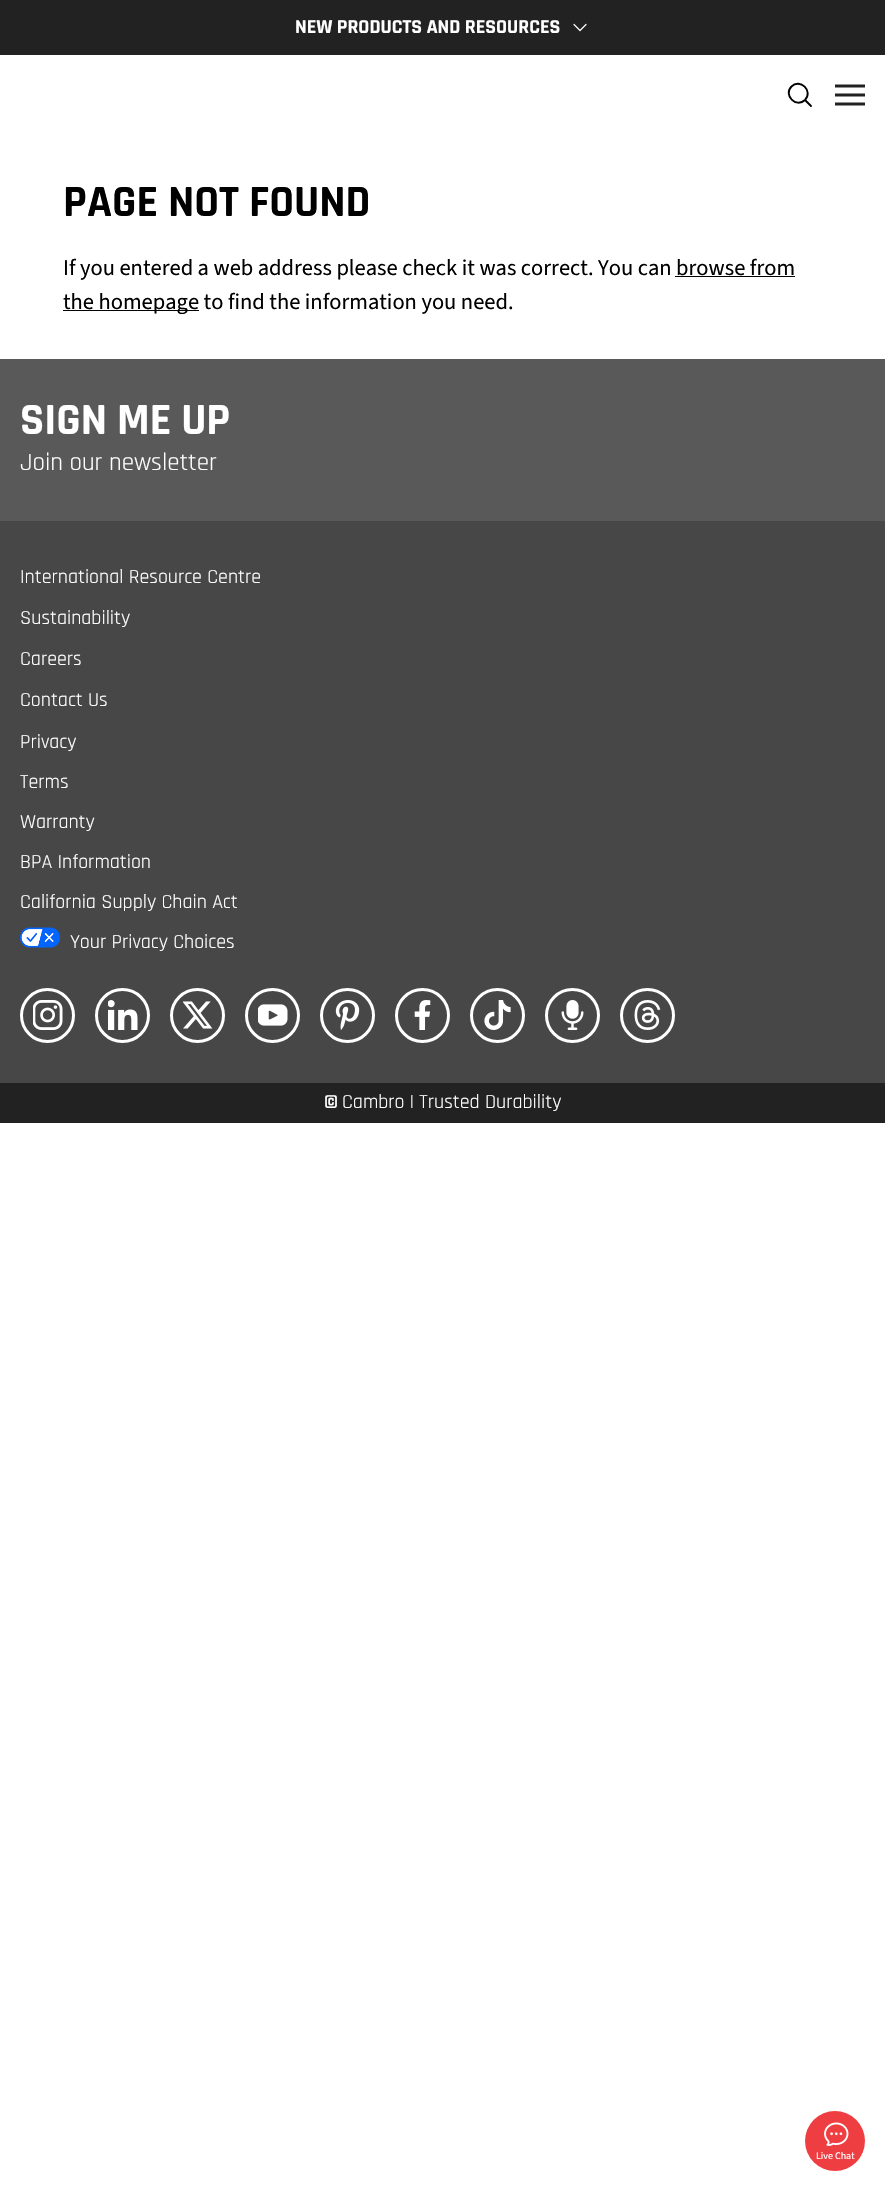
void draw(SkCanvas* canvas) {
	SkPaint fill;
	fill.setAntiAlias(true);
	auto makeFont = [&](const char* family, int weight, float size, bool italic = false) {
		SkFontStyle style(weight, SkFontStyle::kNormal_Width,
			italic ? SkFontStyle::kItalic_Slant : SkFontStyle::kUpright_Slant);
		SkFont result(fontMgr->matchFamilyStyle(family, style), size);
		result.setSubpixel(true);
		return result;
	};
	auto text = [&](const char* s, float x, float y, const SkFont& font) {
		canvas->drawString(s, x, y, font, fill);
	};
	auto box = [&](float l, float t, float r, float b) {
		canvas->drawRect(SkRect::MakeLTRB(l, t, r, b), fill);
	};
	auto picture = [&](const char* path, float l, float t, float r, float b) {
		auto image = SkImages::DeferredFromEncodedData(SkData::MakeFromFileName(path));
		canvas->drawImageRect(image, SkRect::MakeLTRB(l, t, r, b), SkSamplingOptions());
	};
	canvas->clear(0xFFFFFFFF);
	fill.setColor(0xFF222222);
	box(0, 0, 885, 55);
	fill.setStyle(SkPaint::kStroke_Style);
	fill.setStrokeWidth(1.2f);
	fill.setStrokeCap(SkPaint::kRound_Cap);
	fill.setStrokeJoin(SkPaint::kRound_Join);
	fill.setColor(0xFFFFFFFF);
	canvas->drawPath(SkPathBuilder().moveTo(586, 24.5f).lineTo(580, 30.5f).lineTo(574, 24.5f).detach(), fill);
	fill.setStrokeWidth(1.9f);
	fill.setColor(0xFF000000);
	canvas->drawPath(SkPathBuilder().moveTo(811, 106).lineTo(805, 100).moveTo(805, 100).cubicTo(813.5f, 91, 800, 78, 791.5f, 86.5f).cubicTo(783, 95, 796, 108.5f, 805, 100).close().detach(), fill);
	picture("image0.png", 835, 84, 865, 106);
	fill.setStyle(SkPaint::kFill_Style);
	box(675, 276, 795, 277);
	box(63, 310, 199, 311);
	fill.setColor(0xFF595959);
	box(0, 359, 885, 521);
	fill.setColor(0xFF474747);
	box(0, 521, 885, 1083);
	picture("image1.png", 20, 927, 60, 948);
	fill.setStyle(SkPaint::kStroke_Style);
	fill.setStrokeWidth(3);
	fill.setStrokeCap(SkPaint::kButt_Cap);
	fill.setStrokeJoin(SkPaint::kMiter_Join);
	fill.setColor(0xFFFFFFFF);
	canvas->drawCircle(47.5f, 1015.5f, 26, fill);
	picture("image2.png", 33, 1000, 63, 1030);
	canvas->drawCircle(122.5f, 1015.5f, 26, fill);
	picture("image3.png", 108, 1000, 138, 1030);
	canvas->drawCircle(197.5f, 1015.5f, 26, fill);
	picture("image4.png", 183, 1001, 213, 1029);
	canvas->drawCircle(272.5f, 1015.5f, 26, fill);
	picture("image5.png", 258, 1004, 288, 1026);
	canvas->drawCircle(347.5f, 1015.5f, 26, fill);
	picture("image6.png", 335, 1000, 360, 1030);
	canvas->drawCircle(422.5f, 1015.5f, 26, fill);
	picture("image7.png", 414, 1000, 431, 1030);
	canvas->drawCircle(497.5f, 1015.5f, 26, fill);
	picture("image8.png", 484, 1000, 511, 1030);
	canvas->drawCircle(572.5f, 1015.5f, 26, fill);
	picture("image9.png", 561, 1000, 584, 1030);
	canvas->drawCircle(647.5f, 1015.5f, 26, fill);
	picture("image10.png", 634, 1000, 661, 1030);
	fill.setStyle(SkPaint::kFill_Style);
	fill.setColor(0xFF222222);
	box(0, 1083, 885, 1123);
	fill.setColor(0xFFEF3E42);
	canvas->drawCircle(835, 2141, 30, fill);
	picture("image11.png", 824, 2122, 849, 2146);
	auto font1 = makeFont("Rajdhani", 700, 20);
	fill.setColor(0xFFFFFFFF);
	text("NEW PRODUCTS AND RESOURCES", 295, 33, font1);
	auto font2 = makeFont("Rajdhani", 700, 45);
	fill.setColor(0xFF000000);
	text("PAGE NOT FOUND", 63, 216, font2);
	auto font3 = makeFont("Source Sans 3", 400, 22.5f);
	text("If you entered a web address please check it was correct. You can browse from", 63, 275, font3);
	text("the homepage to find the information you need.", 63, 309, font3);
	fill.setColor(0xFFFFFFFF);
	text("SIGN ME UP", 20, 434, font2);
	auto font4 = makeFont("Rajdhani", 400, 25);
	text("Join our newsletter", 20, 470, font4);
	auto font5 = makeFont("Rajdhani", 400, 20);
	text("International Resource Centre", 20, 583, font5);
	text("Sustainability", 20, 624, font5);
	text("Careers", 20, 665, font5);
	text("Contact Us", 20, 706, font5);
	text("Privacy", 20, 748, font5);
	text("Terms", 20, 788, font5);
	text("Warranty", 20, 828, font5);
	text("BPA Information", 20, 868, font5);
	text("California Supply Chain Act", 20, 908, font5);
	text("Your Privacy Choices", 70, 948, font5);
	text("©", 324, 1108, font1);
	text("Cambro | Trusted Durability", 342, 1108, font5);
	auto font6 = makeFont("Source Sans 3", 400, 10);
	text("Live Chat", 816, 2159, font6);
}
